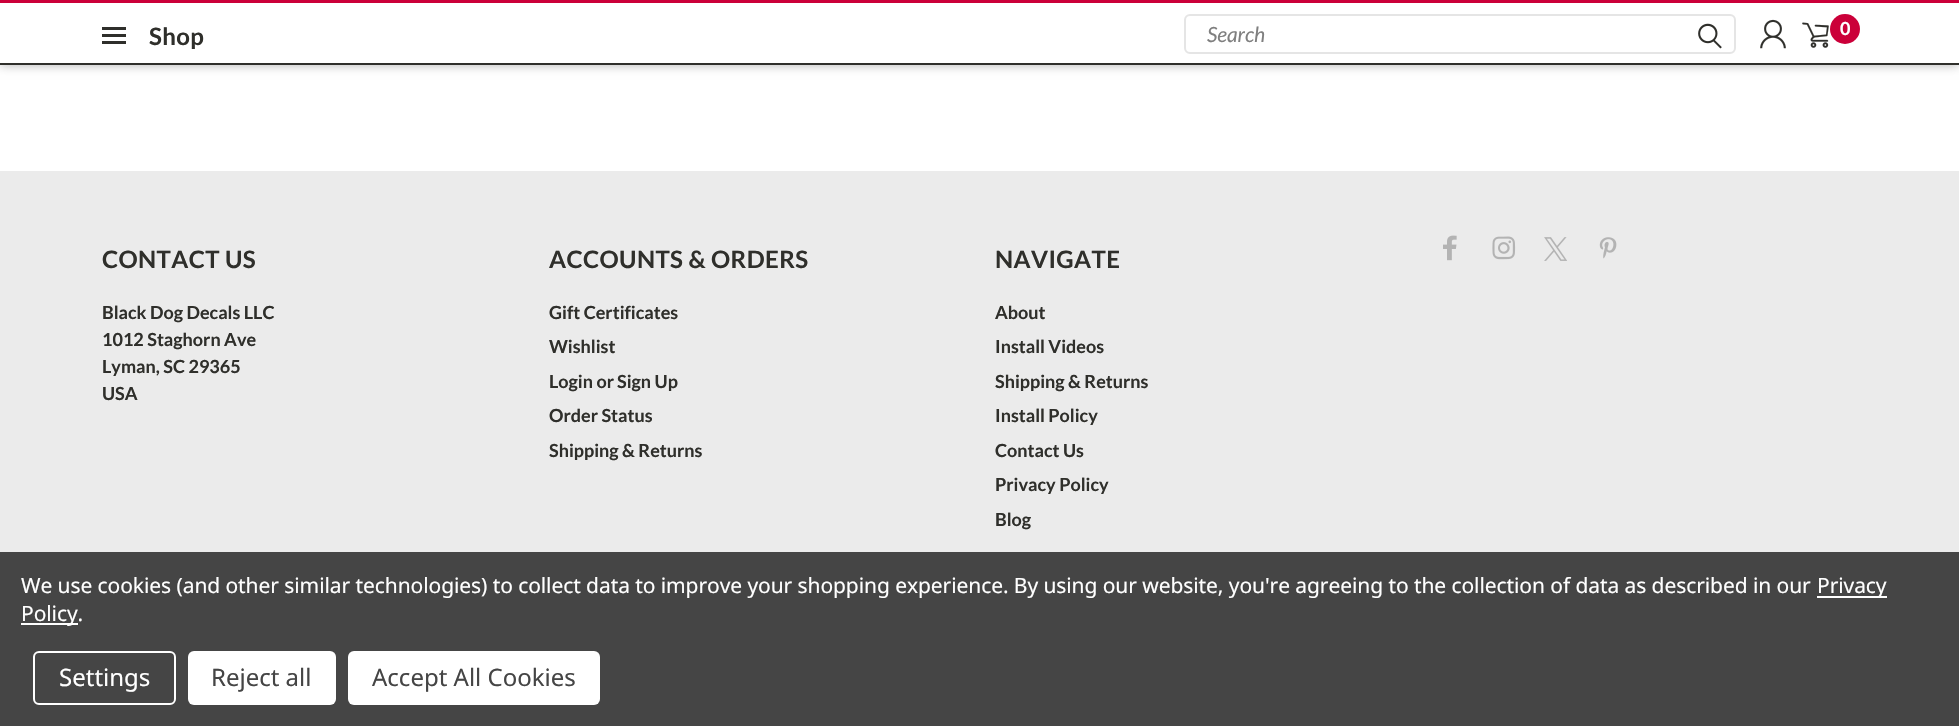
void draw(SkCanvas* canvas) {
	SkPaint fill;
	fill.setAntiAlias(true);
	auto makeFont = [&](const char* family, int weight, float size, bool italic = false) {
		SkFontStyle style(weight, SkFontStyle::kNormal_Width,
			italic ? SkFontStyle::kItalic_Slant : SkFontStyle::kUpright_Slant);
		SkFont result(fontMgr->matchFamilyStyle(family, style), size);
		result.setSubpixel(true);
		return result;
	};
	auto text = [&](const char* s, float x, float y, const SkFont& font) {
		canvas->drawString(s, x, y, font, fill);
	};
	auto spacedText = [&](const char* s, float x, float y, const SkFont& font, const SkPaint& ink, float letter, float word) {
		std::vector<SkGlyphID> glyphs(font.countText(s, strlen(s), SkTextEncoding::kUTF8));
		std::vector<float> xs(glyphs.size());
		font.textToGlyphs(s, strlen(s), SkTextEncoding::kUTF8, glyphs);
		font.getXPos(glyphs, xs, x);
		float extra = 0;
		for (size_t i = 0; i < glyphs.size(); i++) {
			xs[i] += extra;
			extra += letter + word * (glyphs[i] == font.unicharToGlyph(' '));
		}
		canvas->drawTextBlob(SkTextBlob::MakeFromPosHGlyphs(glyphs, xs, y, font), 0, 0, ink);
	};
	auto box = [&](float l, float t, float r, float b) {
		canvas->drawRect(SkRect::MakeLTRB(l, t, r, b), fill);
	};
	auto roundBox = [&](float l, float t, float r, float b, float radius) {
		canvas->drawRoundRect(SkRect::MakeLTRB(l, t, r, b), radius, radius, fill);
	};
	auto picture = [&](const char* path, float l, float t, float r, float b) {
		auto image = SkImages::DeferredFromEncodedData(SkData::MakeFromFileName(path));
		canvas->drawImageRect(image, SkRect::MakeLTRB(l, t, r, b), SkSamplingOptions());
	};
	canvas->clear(0xFFFFFFFF);
	fill.setColor(0x4D000000);
	fill.setMaskFilter(SkMaskFilter::MakeBlur(kNormal_SkBlurStyle, 5));
	canvas->drawRect(SkRect::MakeLTRB(0, 0, 1959, 65), fill);
	fill.setMaskFilter(nullptr);
	fill.setColor(0xFFFFFFFF);
	box(0, 3, 1959, 63);
	fill.setColor(0xFFCB0039);
	box(0, 0, 1959, 3);
	fill.setColor(0xFF2F2F2B);
	box(0, 63, 1959, 65);
	box(102, 27, 126, 30);
	box(102, 34, 126, 37);
	box(102, 41, 126, 44);
	fill.setStyle(SkPaint::kStroke_Style);
	fill.setStrokeWidth(2);
	fill.setColor(0xFFE5E5E5);
	canvas->drawRoundRect(SkRect::MakeLTRB(1185, 15, 1735, 53), 5, 5, fill);
	picture("image0.png", 1698, 23, 1722, 49);
	picture("image1.png", 1760, 19, 1786, 49);
	picture("image2.png", 1802, 22, 1829, 48);
	fill.setStyle(SkPaint::kFill_Style);
	fill.setColor(0xFFCB0039);
	canvas->drawCircle(1845, 29, 15, fill);
	fill.setColor(0xFFEBEBEB);
	box(0, 171, 1959, 552);
	picture("image3.png", 1443, 235, 1457, 261);
	picture("image4.png", 1492, 236, 1516, 260);
	picture("image5.png", 1544, 237, 1567, 261);
	picture("image6.png", 1599, 237, 1617, 259);
	fill.setColor(0xFF454545);
	box(0, 552, 1959, 726);
	fill.setColor(0xFFFFFFFF);
	box(1817, 596, 1887, 598);
	box(21, 623, 78, 625);
	fill.setStyle(SkPaint::kStroke_Style);
	canvas->drawRoundRect(SkRect::MakeLTRB(34, 652, 175, 704), 5, 5, fill);
	fill.setStyle(SkPaint::kFill_Style);
	roundBox(188, 651, 336, 705, 6);
	roundBox(348, 651, 600, 705, 6);
	auto font1 = makeFont("Lato", 700, 24);
	fill.setColor(0xFF2F2F2B);
	spacedText("Shop", 149, 45, font1, fill, 0.4f, 0);
	auto font2 = makeFont("Lato", 400, 21, true);
	fill.setColor(0xFF7F7F7F);
	text("Search", 1207, 42, font2);
	auto font3 = makeFont("Lato", 700, 18);
	fill.setColor(0xFFFFFFFF);
	text("0", 1840, 35, font3);
	fill.setColor(0xFF2F2F2B);
	spacedText("CONTACT US", 102, 268, font1, fill, 0.4f, 0);
	text("Black Dog Decals LLC", 102, 319, font3);
	text("1012 Staghorn Ave", 102, 346, font3);
	text("Lyman, SC 29365", 102, 373, font3);
	text("USA", 102, 400, font3);
	spacedText("ACCOUNTS & ORDERS", 549, 268, font1, fill, 0.4f, 0);
	text("Gift Certificates", 549, 319, font3);
	text("Wishlist", 549, 353, font3);
	text("Login or", 549, 388, font3);
	text("Sign Up", 617, 388, font3);
	text("Order Status", 549, 422, font3);
	text("Shipping & Returns", 549, 457, font3);
	spacedText("NAVIGATE", 995, 268, font1, fill, 0.4f, 0);
	text("About", 995, 319, font3);
	text("Install Videos", 995, 353, font3);
	text("Shipping & Returns", 995, 388, font3);
	text("Install Policy", 995, 422, font3);
	text("Contact Us", 995, 457, font3);
	text("Privacy Policy", 995, 491, font3);
	text("Blog", 995, 526, font3);
	auto font4 = makeFont("Noto Sans", 400, 21);
	fill.setColor(0xFFFFFFFF);
	spacedText("We use cookies (and other similar technologies) to collect data to improve your shopping experience. By using our website, you're agreeing to the collection of data as described in our", 21, 593, font4, fill, -0.08f, 0);
	spacedText("Privacy", 1817, 593, font4, fill, -0.08f, 0);
	spacedText("Policy.", 21, 621, font4, fill, -0.08f, 0);
	auto font5 = makeFont("Noto Sans", 400, 24);
	text("Settings", 59, 686, font5);
	fill.setColor(0xFF454545);
	text("Reject all", 211, 686, font5);
	text("Accept All Cookies", 372, 686, font5);
}
